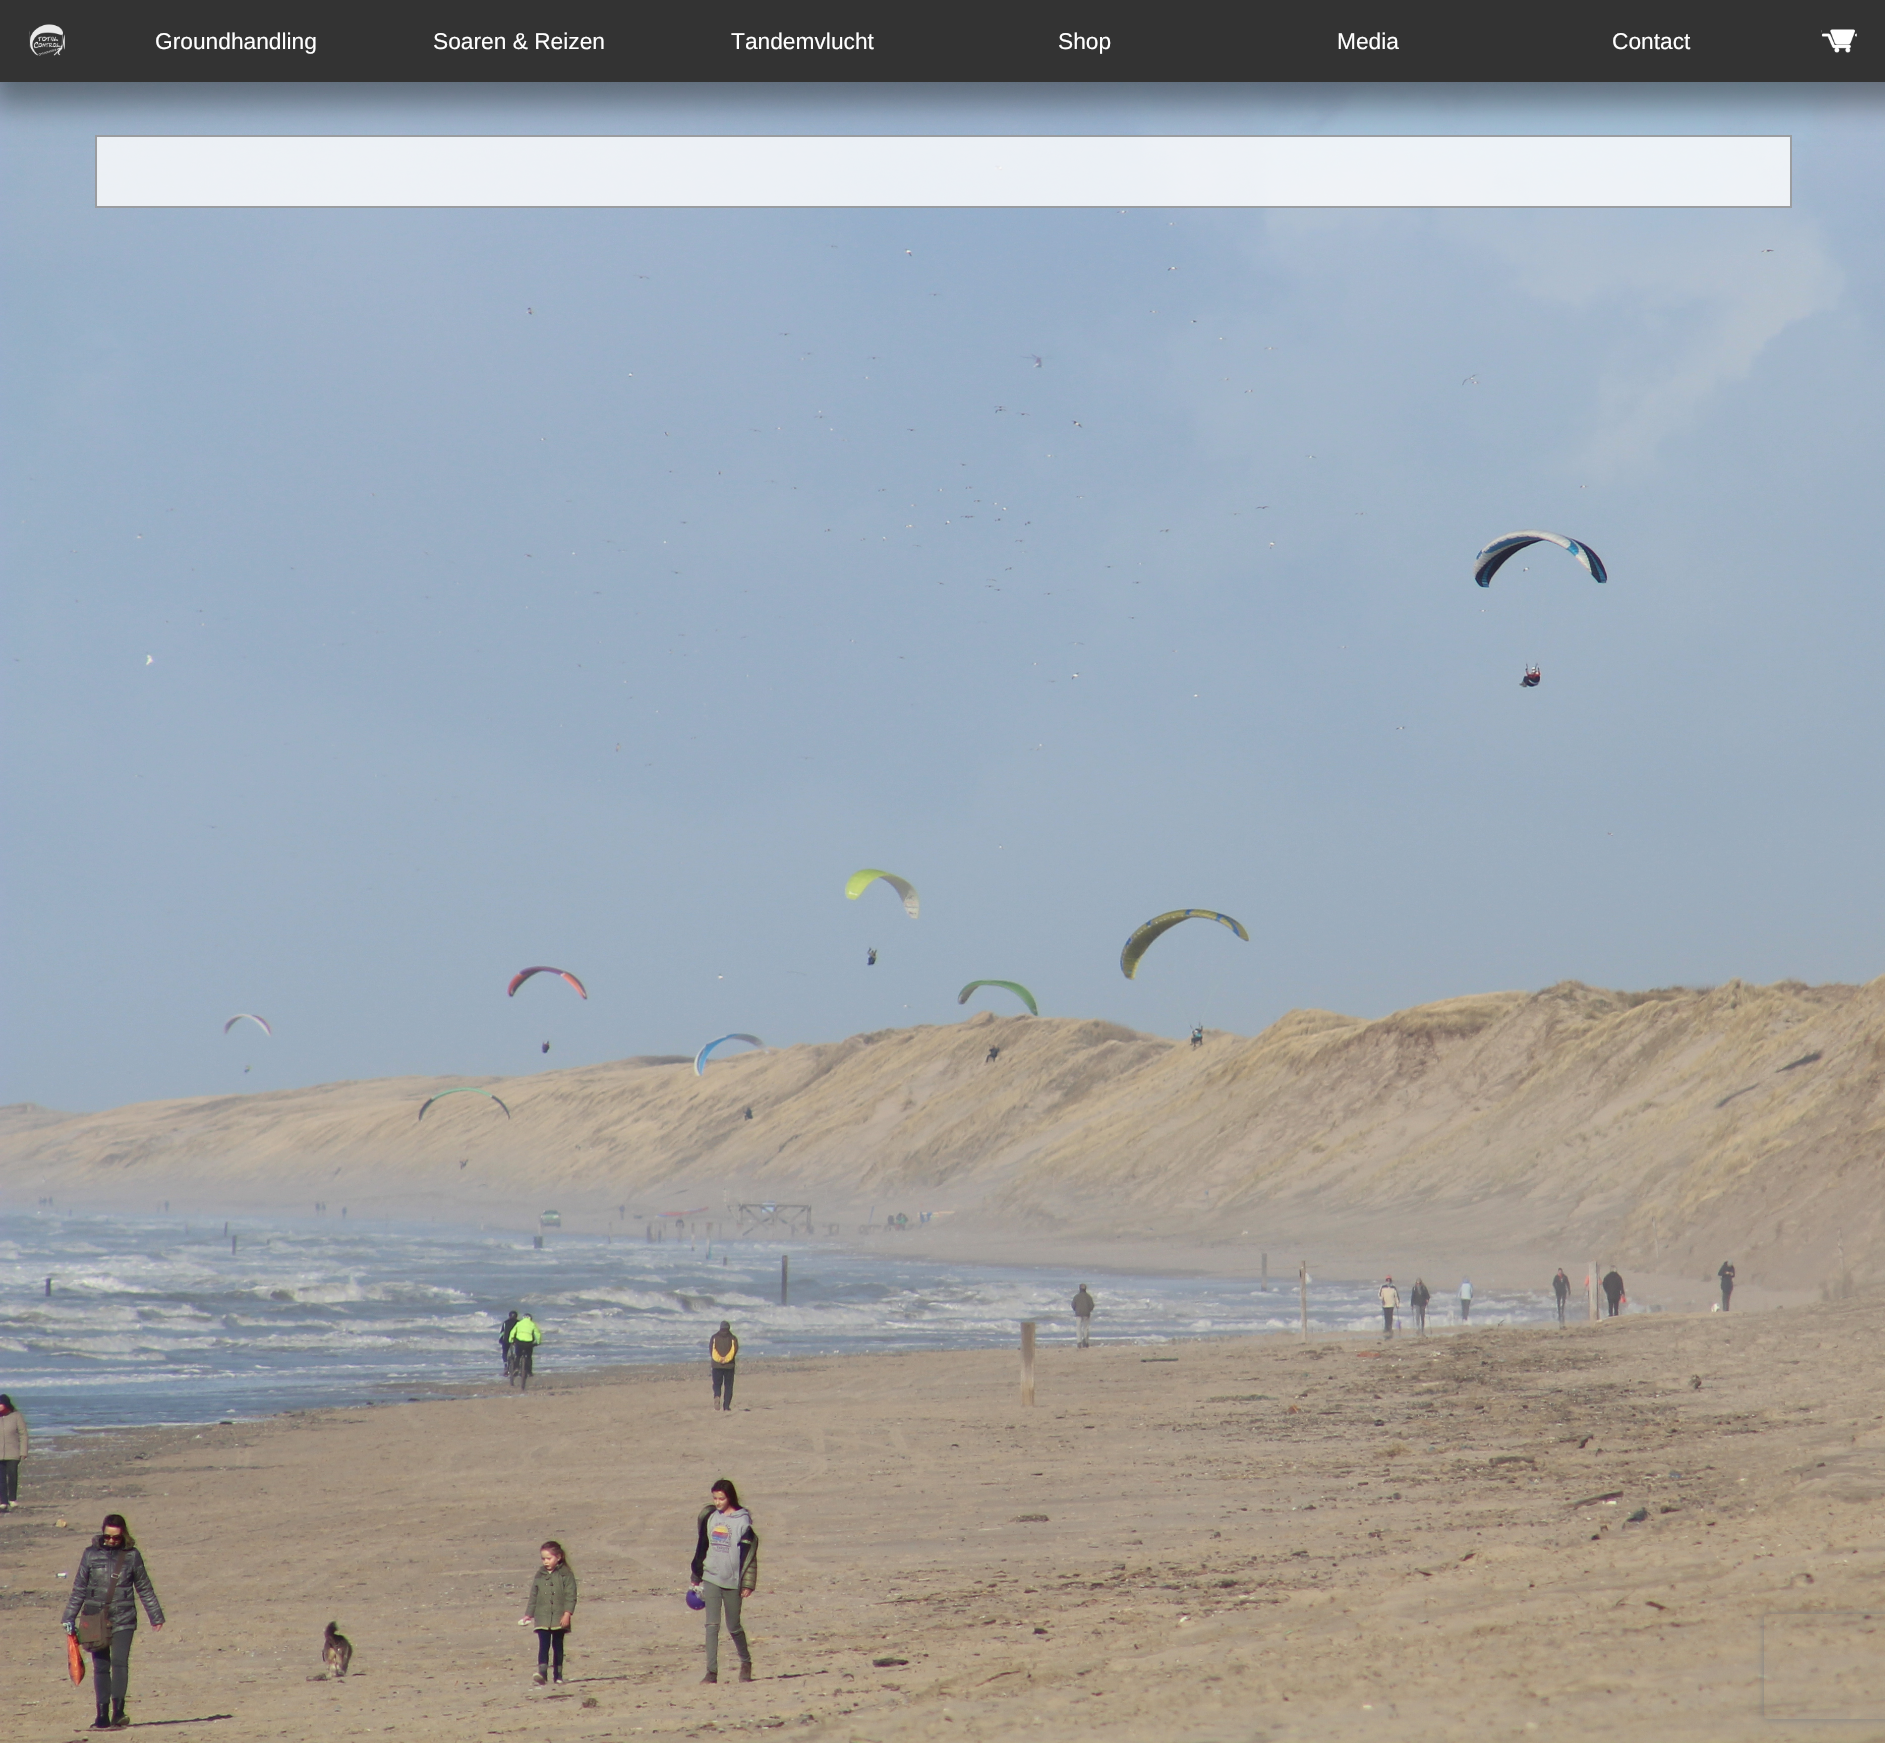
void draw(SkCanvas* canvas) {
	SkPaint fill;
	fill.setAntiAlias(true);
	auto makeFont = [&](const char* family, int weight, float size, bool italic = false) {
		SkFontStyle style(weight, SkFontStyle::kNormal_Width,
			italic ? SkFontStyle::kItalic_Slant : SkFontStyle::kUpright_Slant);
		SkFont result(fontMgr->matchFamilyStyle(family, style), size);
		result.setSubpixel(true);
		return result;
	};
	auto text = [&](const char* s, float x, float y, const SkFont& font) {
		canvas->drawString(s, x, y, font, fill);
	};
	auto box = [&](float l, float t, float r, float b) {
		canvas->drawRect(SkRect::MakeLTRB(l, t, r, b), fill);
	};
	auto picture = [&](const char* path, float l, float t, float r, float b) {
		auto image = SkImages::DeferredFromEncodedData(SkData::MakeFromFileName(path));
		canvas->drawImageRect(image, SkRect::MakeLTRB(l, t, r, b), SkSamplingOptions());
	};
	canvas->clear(0xFFFFFFFF);
	picture("image0.png", 0, 82, 1885, 1743);
	fill.setColor(0x66000000);
	fill.setMaskFilter(SkMaskFilter::MakeBlur(kNormal_SkBlurStyle, 14));
	canvas->drawRect(SkRect::MakeLTRB(-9, 5, 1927, 105), fill);
	fill.setMaskFilter(nullptr);
	fill.setColor(0xFF333333);
	box(0, 0, 1885, 82);
	picture("image1.png", 29, 24, 65, 56);
	picture("image2.png", 1821, 29, 1857, 53);
	fill.setColor(0xCCFFFFFF);
	box(95, 135, 1792, 208);
	fill.setStyle(SkPaint::kStroke_Style);
	fill.setStrokeWidth(2);
	fill.setColor(0x59000000);
	canvas->drawRect(SkRect::MakeLTRB(96, 136, 1791, 207), fill);
	canvas->save();
	canvas->clipPath(SkPathBuilder(SkPathFillType::kEvenOdd).moveTo(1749, 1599).lineTo(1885, 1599).lineTo(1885, 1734).lineTo(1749, 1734).close().moveTo(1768, 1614).lineTo(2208, 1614).cubicTo(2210, 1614, 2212, 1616, 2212, 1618).lineTo(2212, 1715).cubicTo(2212, 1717, 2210, 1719, 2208, 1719).lineTo(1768, 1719).cubicTo(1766, 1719, 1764, 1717, 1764, 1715).lineTo(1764, 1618).cubicTo(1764, 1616, 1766, 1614, 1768, 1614).close().detach(), true);
	fill.setStyle(SkPaint::kFill_Style);
	fill.setColor(0xFF808080);
	fill.setMaskFilter(SkMaskFilter::MakeBlur(kNormal_SkBlurStyle, 4.5f));
	canvas->drawRoundRect(SkRect::MakeLTRB(1764, 1614, 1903, 1719), 4, 4, fill);
	fill.setMaskFilter(nullptr);
	canvas->restore();
	auto font1 = makeFont("Liberation Sans", 400, 22.75f);
	fill.setColor(0xFFFFFFFF);
	text("Groundhandling", 155, 49, font1);
	text("Soaren & Reizen", 433, 49, font1);
	text("Tandemvlucht", 731, 49, font1);
	text("Shop", 1058, 49, font1);
	text("Media", 1337, 49, font1);
	text("Contact", 1612, 49, font1);
}
